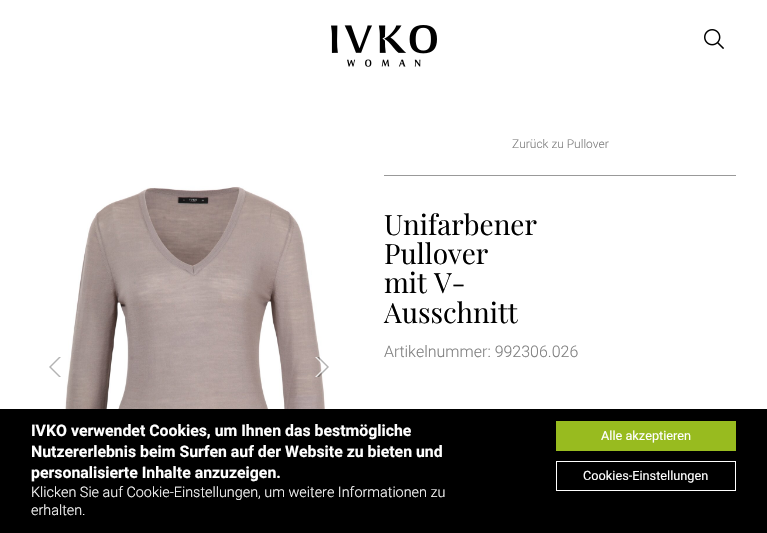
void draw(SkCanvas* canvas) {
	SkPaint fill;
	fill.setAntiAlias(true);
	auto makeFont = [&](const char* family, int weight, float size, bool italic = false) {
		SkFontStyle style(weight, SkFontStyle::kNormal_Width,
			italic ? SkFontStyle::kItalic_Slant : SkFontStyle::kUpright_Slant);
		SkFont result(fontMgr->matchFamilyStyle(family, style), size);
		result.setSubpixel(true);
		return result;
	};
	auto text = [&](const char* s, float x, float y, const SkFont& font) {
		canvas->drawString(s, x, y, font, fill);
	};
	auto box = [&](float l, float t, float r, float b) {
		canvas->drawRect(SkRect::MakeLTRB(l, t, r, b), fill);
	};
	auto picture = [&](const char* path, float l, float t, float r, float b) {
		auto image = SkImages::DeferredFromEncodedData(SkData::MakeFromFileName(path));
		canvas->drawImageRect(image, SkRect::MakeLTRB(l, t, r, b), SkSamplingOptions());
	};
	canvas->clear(0xFFFFFFFF);
	picture("image0.png", 331, 25, 437, 67);
	picture("image1.png", 704, 29, 724, 49);
	picture("image2.png", 31, 130, 347, 409);
	picture("image3.png", 49, 357, 61, 377);
	picture("image4.png", 315, 357, 329, 377);
	fill.setColor(0xFF999999);
	box(384, 175, 736, 176);
	fill.setColor(0xFF000000);
	box(0, 409, 767, 533);
	fill.setColor(0xFF98BB1F);
	box(556, 421, 736, 451);
	fill.setStyle(SkPaint::kStroke_Style);
	fill.setStrokeWidth(1);
	fill.setColor(0xFFFFFFFF);
	canvas->drawRect(SkRect::MakeLTRB(556.5f, 461.5f, 735.5f, 490.5f), fill);
	auto font1 = makeFont("Roboto", 300, 12);
	fill.setStyle(SkPaint::kFill_Style);
	fill.setColor(0xFF808080);
	text("Zurück zu Pullover", 512, 148, font1);
	auto font2 = makeFont("Playfair Display", 400, 28);
	fill.setColor(0xFF000000);
	text("Unifarbener", 384, 235, font2);
	text("Pullover", 384, 264, font2);
	text("mit V-", 384, 293, font2);
	text("Ausschnitt", 384, 323, font2);
	auto font3 = makeFont("Roboto", 300, 16);
	fill.setColor(0xFF808080);
	text("Artikelnummer: 992306.026", 384, 357, font3);
	auto font4 = makeFont("Roboto", 700, 15.85f);
	fill.setColor(0xFFFFFFFF);
	text("IVKO verwendet Cookies, um Ihnen das bestmögliche", 31, 436, font4);
	text("Nutzererlebnis beim Surfen auf der Website zu bieten und", 31, 457, font4);
	text("personalisierte Inhalte anzuzeigen.", 31, 478, font4);
	auto font5 = makeFont("Roboto", 300, 14.4f);
	text("Klicken Sie auf Cookie-Einstellungen, um weitere Informationen zu", 31, 497, font5);
	text("erhalten.", 31, 515, font5);
	auto font6 = makeFont("Roboto", 400, 12.75f);
	text("Alle akzeptieren", 601, 440, font6);
	text("Cookies-Einstellungen", 583, 480, font6);
}
